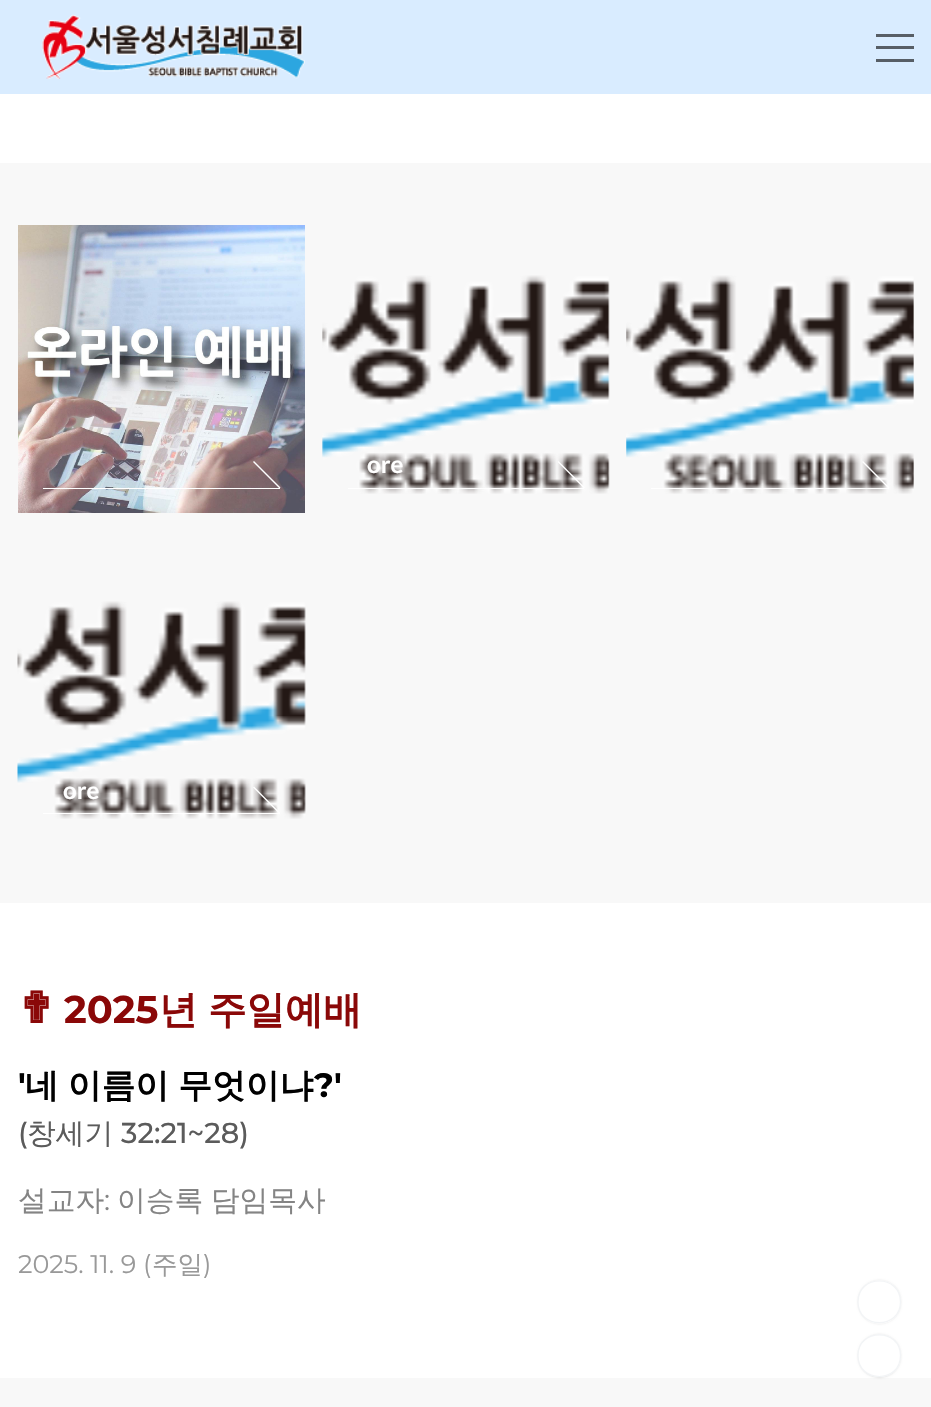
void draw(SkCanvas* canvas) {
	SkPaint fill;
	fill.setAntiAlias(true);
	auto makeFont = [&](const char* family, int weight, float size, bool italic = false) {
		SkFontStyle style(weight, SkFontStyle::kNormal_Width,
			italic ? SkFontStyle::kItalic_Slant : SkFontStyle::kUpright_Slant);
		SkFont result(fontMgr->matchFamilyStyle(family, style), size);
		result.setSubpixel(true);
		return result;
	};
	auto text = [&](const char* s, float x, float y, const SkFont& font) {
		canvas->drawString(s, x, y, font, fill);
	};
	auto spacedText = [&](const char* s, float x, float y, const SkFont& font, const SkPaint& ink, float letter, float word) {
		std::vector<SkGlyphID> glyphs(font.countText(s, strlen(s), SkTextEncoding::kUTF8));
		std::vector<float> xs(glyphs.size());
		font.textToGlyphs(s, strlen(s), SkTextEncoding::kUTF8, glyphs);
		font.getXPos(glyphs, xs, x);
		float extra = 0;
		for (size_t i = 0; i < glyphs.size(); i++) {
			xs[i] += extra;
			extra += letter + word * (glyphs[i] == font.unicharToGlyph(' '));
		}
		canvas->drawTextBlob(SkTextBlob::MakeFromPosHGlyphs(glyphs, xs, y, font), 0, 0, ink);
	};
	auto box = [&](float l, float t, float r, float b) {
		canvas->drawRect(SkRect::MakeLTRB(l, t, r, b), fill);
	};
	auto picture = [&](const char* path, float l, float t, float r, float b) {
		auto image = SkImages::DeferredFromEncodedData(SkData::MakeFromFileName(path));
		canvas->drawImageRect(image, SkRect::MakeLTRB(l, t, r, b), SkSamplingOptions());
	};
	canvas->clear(0xFFFFFFFF);
	fill.setColor(0xFFD9ECFF);
	box(0, 0, 931, 94);
	picture("image0.png", 41, 14, 305, 79);
	fill.setColor(0xFF575E66);
	box(876, 34, 914, 37);
	box(876, 46, 914, 49);
	box(876, 59, 914, 62);
	fill.setColor(0xFFF8F8F8);
	box(0, 163, 931, 903);
	picture("image1.png", 18, 225, 305, 513);
	fill.setColor(0xFFFFFFFF);
	box(43, 488, 280, 489);
	canvas->drawPath(SkPathBuilder().moveTo(254, 461).lineTo(280.5f, 487.5f).lineTo(279.5f, 488.5f).lineTo(253, 462).close().detach(), fill);
	picture("image2.png", 322, 275, 610, 494);
	box(348, 488, 584, 489);
	canvas->drawPath(SkPathBuilder().moveTo(558.5f, 461).lineTo(585, 487.5f).lineTo(584, 488.5f).lineTo(557.5f, 462).close().detach(), fill);
	picture("image3.png", 626, 275, 914, 494);
	box(651, 488, 889, 489);
	canvas->drawPath(SkPathBuilder().moveTo(863, 461).lineTo(889.5f, 487.5f).lineTo(888.5f, 488.5f).lineTo(862, 462).close().detach(), fill);
	picture("image4.png", 17, 601, 306, 819);
	box(43, 813, 280, 814);
	canvas->drawPath(SkPathBuilder().moveTo(254, 786.5f).lineTo(280.5f, 813).lineTo(279.5f, 814).lineTo(253, 787.5f).close().detach(), fill);
	fill.setColor(0xFFF8F8F8);
	box(0, 1378, 931, 1407);
	fill.setColor(0x1A000000);
	fill.setMaskFilter(SkMaskFilter::MakeBlur(kNormal_SkBlurStyle, 1));
	canvas->drawRoundRect(SkRect::MakeLTRB(858, 1280, 901, 1324), 21.5f, 21.5f, fill);
	fill.setMaskFilter(nullptr);
	fill.setColor(0xFFFFFFFF);
	canvas->drawPath(SkPathBuilder().moveTo(901, 1302).cubicTo(901, 1331, 858, 1331, 858, 1302).cubicTo(858, 1273, 901, 1273, 901, 1302).close().detach(), fill);
	fill.setStyle(SkPaint::kStroke_Style);
	fill.setStrokeWidth(1.2f);
	fill.setColor(0xFFF2F4F6);
	canvas->drawPath(SkPathBuilder().moveTo(900.5f, 1302).cubicTo(900.5f, 1329.5f, 858, 1329.5f, 858, 1302).cubicTo(858, 1274, 900.5f, 1274, 900.5f, 1302).close().detach(), fill);
	fill.setStyle(SkPaint::kFill_Style);
	fill.setColor(0x1A000000);
	fill.setMaskFilter(SkMaskFilter::MakeBlur(kNormal_SkBlurStyle, 1));
	canvas->drawRoundRect(SkRect::MakeLTRB(858, 1334, 901, 1378), 21.5f, 21.5f, fill);
	fill.setMaskFilter(nullptr);
	fill.setColor(0xFFFFFFFF);
	canvas->drawPath(SkPathBuilder().moveTo(858, 1356).cubicTo(858, 1327, 901, 1327, 901, 1356).cubicTo(901, 1384, 858, 1384, 858, 1356).close().detach(), fill);
	fill.setStyle(SkPaint::kStroke_Style);
	fill.setColor(0xFFF2F4F6);
	canvas->drawPath(SkPathBuilder().moveTo(858, 1355.5f).cubicTo(858, 1328, 900.5f, 1328, 900.5f, 1355.5f).cubicTo(900.5f, 1383.5f, 858, 1383.5f, 858, 1355.5f).close().detach(), fill);
	auto font1 = makeFont("Lato", 700, 24);
	fill.setStyle(SkPaint::kFill_Style);
	fill.setColor(0xFFFFFFFF);
	text("ore", 367, 473, font1);
	text("ore", 63, 799, font1);
	auto font2 = makeFont("DejaVu Sans", 700, 43);
	fill.setColor(0xFF8A0808);
	text("✟", 18, 1023, font2);
	auto font3 = makeFont("Montserrat", 700, 38.5f);
	text("2025", 64, 1023, font3);
	auto font4 = makeFont("WenQuanYi Zen Hei", 700, 38.5f);
	spacedText("년 주일예배", 159, 1023, font4, fill, 0, -1);
	auto font5 = makeFont("Montserrat", 700, 33.75f);
	fill.setColor(0xFF000000);
	text("'", 18, 1097, font5);
	auto font6 = makeFont("WenQuanYi Zen Hei", 700, 33.75f);
	spacedText("네 이름이 무엇이냐", 25, 1097, font6, fill, 0, -1);
	text("?'", 314, 1097, font5);
	auto font7 = makeFont("Montserrat", 500, 28.75f);
	fill.setColor(0xFF5B5B5B);
	text("(", 18, 1143, font7);
	auto font8 = makeFont("WenQuanYi Zen Hei", 500, 28.75f);
	text("창세기", 27, 1143, font8);
	text("32:21~28)", 121, 1143, font7);
	fill.setColor(0xFF848484);
	text("설교자", 18, 1210, font8);
	auto font9 = makeFont("Montserrat", 400, 28.75f);
	text(":", 104, 1210, font9);
	spacedText("이승록 담임목사", 117, 1210, font8, fill, 0, -1);
	auto font10 = makeFont("Montserrat", 400, 25.5f);
	fill.setColor(0xFF999999);
	text("2025. 11. 9 (", 18, 1273, font10);
	auto font11 = makeFont("WenQuanYi Zen Hei", 500, 25.5f);
	text("주일", 152, 1273, font11);
	text(")", 203, 1273, font10);
}
